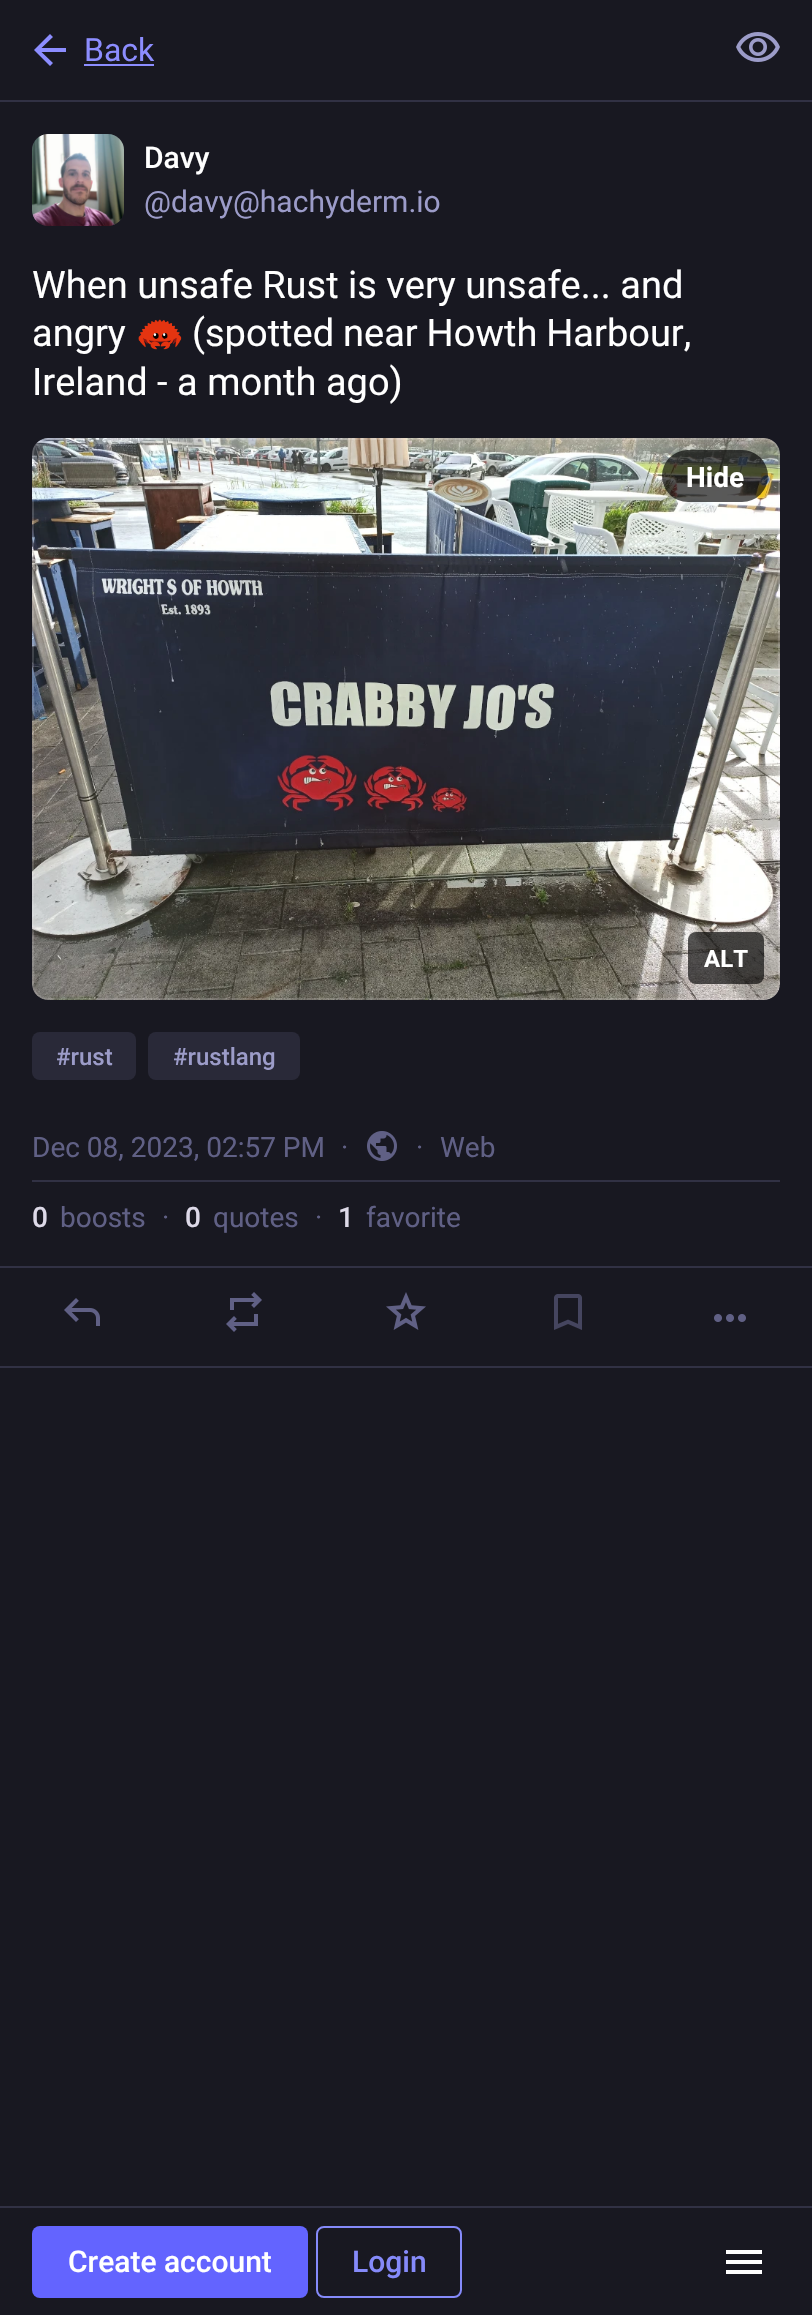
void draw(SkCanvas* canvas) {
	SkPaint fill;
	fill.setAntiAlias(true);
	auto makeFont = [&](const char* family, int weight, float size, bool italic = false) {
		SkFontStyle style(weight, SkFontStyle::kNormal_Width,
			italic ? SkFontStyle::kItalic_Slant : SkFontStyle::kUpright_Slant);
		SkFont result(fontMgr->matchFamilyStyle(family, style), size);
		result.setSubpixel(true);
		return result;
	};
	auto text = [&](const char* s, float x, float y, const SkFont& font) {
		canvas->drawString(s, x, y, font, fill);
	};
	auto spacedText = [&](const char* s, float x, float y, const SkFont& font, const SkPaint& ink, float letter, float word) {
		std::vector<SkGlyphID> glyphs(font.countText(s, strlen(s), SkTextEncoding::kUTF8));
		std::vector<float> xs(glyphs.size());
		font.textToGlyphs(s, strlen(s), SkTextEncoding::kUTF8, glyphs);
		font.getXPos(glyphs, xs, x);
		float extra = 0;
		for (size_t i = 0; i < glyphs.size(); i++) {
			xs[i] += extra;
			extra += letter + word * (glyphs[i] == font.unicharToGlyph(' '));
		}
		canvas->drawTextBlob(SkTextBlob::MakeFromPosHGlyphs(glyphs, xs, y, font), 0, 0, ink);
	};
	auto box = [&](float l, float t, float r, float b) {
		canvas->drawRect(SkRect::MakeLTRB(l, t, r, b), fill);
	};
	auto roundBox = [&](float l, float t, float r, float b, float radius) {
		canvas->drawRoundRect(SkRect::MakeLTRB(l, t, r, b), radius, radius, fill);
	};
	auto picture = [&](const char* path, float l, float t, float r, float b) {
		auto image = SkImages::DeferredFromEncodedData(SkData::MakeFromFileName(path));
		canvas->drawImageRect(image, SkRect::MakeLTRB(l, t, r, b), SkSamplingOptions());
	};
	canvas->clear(0xFF181821);
	fill.setColor(0xFF313144);
	box(0, 100, 812, 102);
	fill.setColor(0xFF8C8DFF);
	canvas->drawPath(SkPathBuilder().moveTo(41.5f, 52).lineTo(53, 63).lineTo(50, 66).lineTo(34, 50).lineTo(50, 34).lineTo(53, 37).lineTo(41.5f, 48).lineTo(66, 48).lineTo(66, 52).close().detach(), fill);
	box(84, 64, 154, 66);
	picture("image0.png", 736, 32, 780, 62);
	fill.setColor(0xFF20202C);
	roundBox(32, 134, 124, 226, 16);
	picture("image1.png", 32, 134, 124, 226);
	picture("image2.png", 138, 319, 182, 350);
	picture("image3.png", 32, 438, 780, 1000);
	fill.setStyle(SkPaint::kStroke_Style);
	fill.setStrokeWidth(2);
	fill.setColor(0x26FCF8FF);
	canvas->drawRoundRect(SkRect::MakeLTRB(33, 439, 779, 999), 15, 15, fill);
	fill.setStyle(SkPaint::kFill_Style);
	fill.setColor(0xA6000000);
	roundBox(662, 450, 768, 502, 26);
	roundBox(688, 932, 764, 984, 8);
	fill.setColor(0xFF292938);
	roundBox(32, 1032, 136, 1080, 8);
	roundBox(148, 1032, 300, 1080, 8);
	fill.setColor(0xFF313144);
	box(32, 1180, 780, 1182);
	picture("image4.png", 367, 1131, 397, 1161);
	box(0, 1266, 812, 1268);
	box(0, 1366, 812, 1368);
	picture("image5.png", 64, 1298, 100, 1326);
	picture("image6.png", 226, 1292, 262, 1332);
	picture("image7.png", 386, 1292, 426, 1330);
	picture("image8.png", 554, 1294, 582, 1330);
	picture("image9.png", 714, 1314, 746, 1322);
	box(0, 2206, 812, 2208);
	fill.setColor(0xFF6364FF);
	roundBox(32, 2226, 308, 2298, 8);
	fill.setStyle(SkPaint::kStroke_Style);
	fill.setColor(0xFF858AFA);
	canvas->drawRoundRect(SkRect::MakeLTRB(317, 2227, 461, 2297), 7, 7, fill);
	fill.setStyle(SkPaint::kFill_Style);
	fill.setColor(0xFFFFFFFF);
	canvas->drawPath(SkPathBuilder().moveTo(726, 2274).lineTo(726, 2270).lineTo(762, 2270).lineTo(762, 2274).close().moveTo(726, 2264).lineTo(726, 2260).lineTo(762, 2260).lineTo(762, 2264).close().moveTo(726, 2254).lineTo(726, 2250).lineTo(762, 2250).lineTo(762, 2254).close().detach(), fill);
	auto font1 = makeFont("Roboto", 400, 32);
	fill.setColor(0xFF8C8DFF);
	text("Back", 84, 61, font1);
	auto font2 = makeFont("Roboto", 500, 30);
	fill.setColor(0xFFFFFFFF);
	text("Davy", 144, 168, font2);
	auto font3 = makeFont("Roboto", 400, 30);
	fill.setColor(0xFF9C9CC9);
	text("@davy@hachyderm.io", 144, 212, font3);
	auto font4 = makeFont("Roboto", 400, 38);
	fill.setColor(0xFFFFFFFF);
	text("When unsafe Rust is very unsafe... and", 32, 298, font4);
	text("angry", 32, 346, font4);
	spacedText("(spotted near Howth Harbour,", 192, 346, font4, fill, 0, -0.5f);
	text("Ireland - a month ago)", 32, 395, font4);
	auto font5 = makeFont("Roboto", 700, 28);
	text("Hide", 686, 487, font5);
	auto font6 = makeFont("Roboto", 700, 24);
	text("ALT", 704, 967, font6);
	auto font7 = makeFont("Roboto", 500, 24);
	fill.setColor(0xFF9C9CC9);
	text("#rust", 56, 1065, font7);
	text("#rustlang", 173, 1065, font7);
	auto font8 = makeFont("Roboto", 400, 28);
	fill.setColor(0xFF606085);
	text("Dec 08, 2023, 02:57 PM", 32, 1157, font8);
	text("·", 341, 1157, font8);
	text("·", 416, 1157, font8);
	text("Web", 440, 1157, font8);
	auto font9 = makeFont("Roboto", 500, 28);
	fill.setColor(0xFFDDD9E8);
	text("0", 32, 1227, font9);
	fill.setColor(0xFF606085);
	text("boosts", 60, 1227, font8);
	text("·", 162, 1227, font8);
	fill.setColor(0xFFDDD9E8);
	text("0", 185, 1227, font9);
	fill.setColor(0xFF606085);
	text("quotes", 213, 1227, font8);
	text("·", 315, 1227, font8);
	fill.setColor(0xFFDDD9E8);
	text("1", 338, 1227, font9);
	fill.setColor(0xFF606085);
	text("favorite", 366, 1227, font8);
	fill.setColor(0xFFFFFFFF);
	text("Create account", 68, 2272, font2);
	fill.setColor(0xFF858AFA);
	text("Login", 352, 2272, font2);
}
